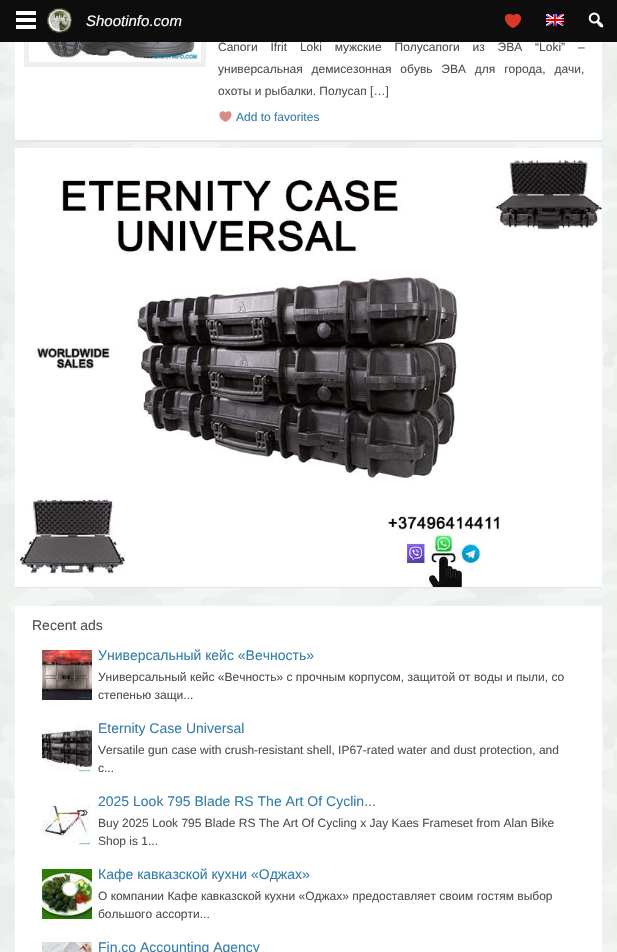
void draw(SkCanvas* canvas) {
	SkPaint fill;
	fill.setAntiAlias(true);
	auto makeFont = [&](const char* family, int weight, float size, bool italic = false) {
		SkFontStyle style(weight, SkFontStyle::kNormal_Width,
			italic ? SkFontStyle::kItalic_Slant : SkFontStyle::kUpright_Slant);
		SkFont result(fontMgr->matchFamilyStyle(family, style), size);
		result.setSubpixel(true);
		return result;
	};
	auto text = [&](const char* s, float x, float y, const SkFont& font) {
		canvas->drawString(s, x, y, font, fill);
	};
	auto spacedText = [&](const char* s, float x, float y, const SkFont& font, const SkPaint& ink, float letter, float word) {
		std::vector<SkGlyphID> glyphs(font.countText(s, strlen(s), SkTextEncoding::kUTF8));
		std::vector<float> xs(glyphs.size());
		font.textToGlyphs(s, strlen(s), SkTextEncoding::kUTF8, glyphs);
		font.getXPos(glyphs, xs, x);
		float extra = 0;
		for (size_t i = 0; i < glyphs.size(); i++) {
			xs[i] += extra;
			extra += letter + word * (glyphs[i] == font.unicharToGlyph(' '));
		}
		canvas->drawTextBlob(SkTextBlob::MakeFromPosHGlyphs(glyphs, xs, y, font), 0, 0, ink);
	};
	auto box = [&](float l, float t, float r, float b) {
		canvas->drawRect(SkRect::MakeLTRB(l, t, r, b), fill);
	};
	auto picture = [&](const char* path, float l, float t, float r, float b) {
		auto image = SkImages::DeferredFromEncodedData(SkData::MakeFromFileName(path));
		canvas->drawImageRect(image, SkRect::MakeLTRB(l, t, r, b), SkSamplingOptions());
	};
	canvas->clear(0xFFF3F8F4);
	picture("image0.png", 0, 42, 617, 952);
	fill.setColor(0xFF0D0D0D);
	box(0, 0, 617, 42);
	fill.setColor(0xFFFFFFFF);
	box(16, 11, 36, 15);
	box(16, 18, 36, 22);
	box(16, 25, 36, 29);
	picture("image1.png", 47, 8, 72, 33);
	picture("image2.png", 504, 13, 522, 28);
	picture("image3.png", 546, 14, 564, 26);
	fill.setColor(0xFFE3E4E7);
	box(15, 140, 602, 142);
	fill.setColor(0xFFFFFFFF);
	box(15, 42, 602, 140);
	fill.setColor(0xFFEFEFEF);
	box(24, 42, 206, 67);
	picture("image4.png", 29, 42, 201, 62);
	fill.setColor(0xFFD88C8C);
	canvas->drawPath(SkPathBuilder().moveTo(225.5f, 122).cubicTo(235.5f, 117.5f, 231.5f, 107.5f, 225.5f, 112.5f).cubicTo(219.5f, 107.5f, 215.5f, 117.5f, 225.5f, 122).close().detach(), fill);
	picture("image5.png", 588, 12, 604, 28);
	fill.setColor(0xFFE3E4E7);
	box(15, 587, 602, 588);
	fill.setColor(0xFFFFFFFF);
	box(15, 148, 602, 160);
	picture("image6.png", 15, 160, 602, 587);
	box(15, 606, 602, 952);
	picture("image7.png", 42, 650, 92, 700);
	picture("image8.png", 42, 724, 92, 773);
	picture("image9.png", 42, 804, 90, 846);
	picture("image10.png", 42, 869, 92, 919);
	picture("image11.png", 42, 942, 92, 952);
	auto font1 = makeFont("Liberation Sans", 400, 15, true);
	text("Shootinfo.com", 86, 26, font1);
	auto font2 = makeFont("Liberation Sans", 400, 12);
	fill.setColor(0xFF4F4F4F);
	spacedText("Сапоги Ifrit Loki мужские Полусапоги из ЭВА “Loki” –", 218, 51, font2, fill, 0, 9.5f);
	spacedText("универсальная демисезонная обувь ЭВА для города, дачи,", 218, 73, font2, fill, 0, 5.5f);
	text("охоты и рыбалки. Полусап […]", 218, 95, font2);
	fill.setColor(0xFF347EA9);
	text("Add to favorites", 236, 121, font2);
	auto font3 = makeFont("Liberation Sans", 400, 14);
	fill.setColor(0xFF4F4F4F);
	text("Recent ads", 32, 630, font3);
	fill.setColor(0xFF347EA9);
	text("Универсальный кейс «Вечность»", 98, 660, font3);
	fill.setColor(0xFF4F4F4F);
	text("Универсальный кейс «Вечность» с прочным корпусом, защитой от воды и пыли, со", 98, 681, font2);
	text("степенью защи...", 98, 699, font2);
	fill.setColor(0xFF347EA9);
	text("Eternity Case Universal", 98, 733, font3);
	fill.setColor(0xFF4F4F4F);
	text("Versatile gun case with crush-resistant shell, IP67-rated water and dust protection, and", 98, 754, font2);
	text("c...", 98, 772, font2);
	fill.setColor(0xFF347EA9);
	text("2025 Look 795 Blade RS The Art Of Cyclin...", 98, 806, font3);
	fill.setColor(0xFF4F4F4F);
	text("Buy 2025 Look 795 Blade RS The Art Of Cycling x Jay Kaes Frameset from Alan Bike", 98, 827, font2);
	text("Shop is 1...", 98, 845, font2);
	fill.setColor(0xFF347EA9);
	text("Кафе кавказской кухни «Оджах»", 98, 879, font3);
	fill.setColor(0xFF4F4F4F);
	text("О компании Кафе кавказской кухни «Оджах» предоставляет своим гостям выбор", 98, 900, font2);
	text("большого ассорти...", 98, 918, font2);
	fill.setColor(0xFF347EA9);
	text("Fin.co Accounting Agency", 98, 952, font3);
}
